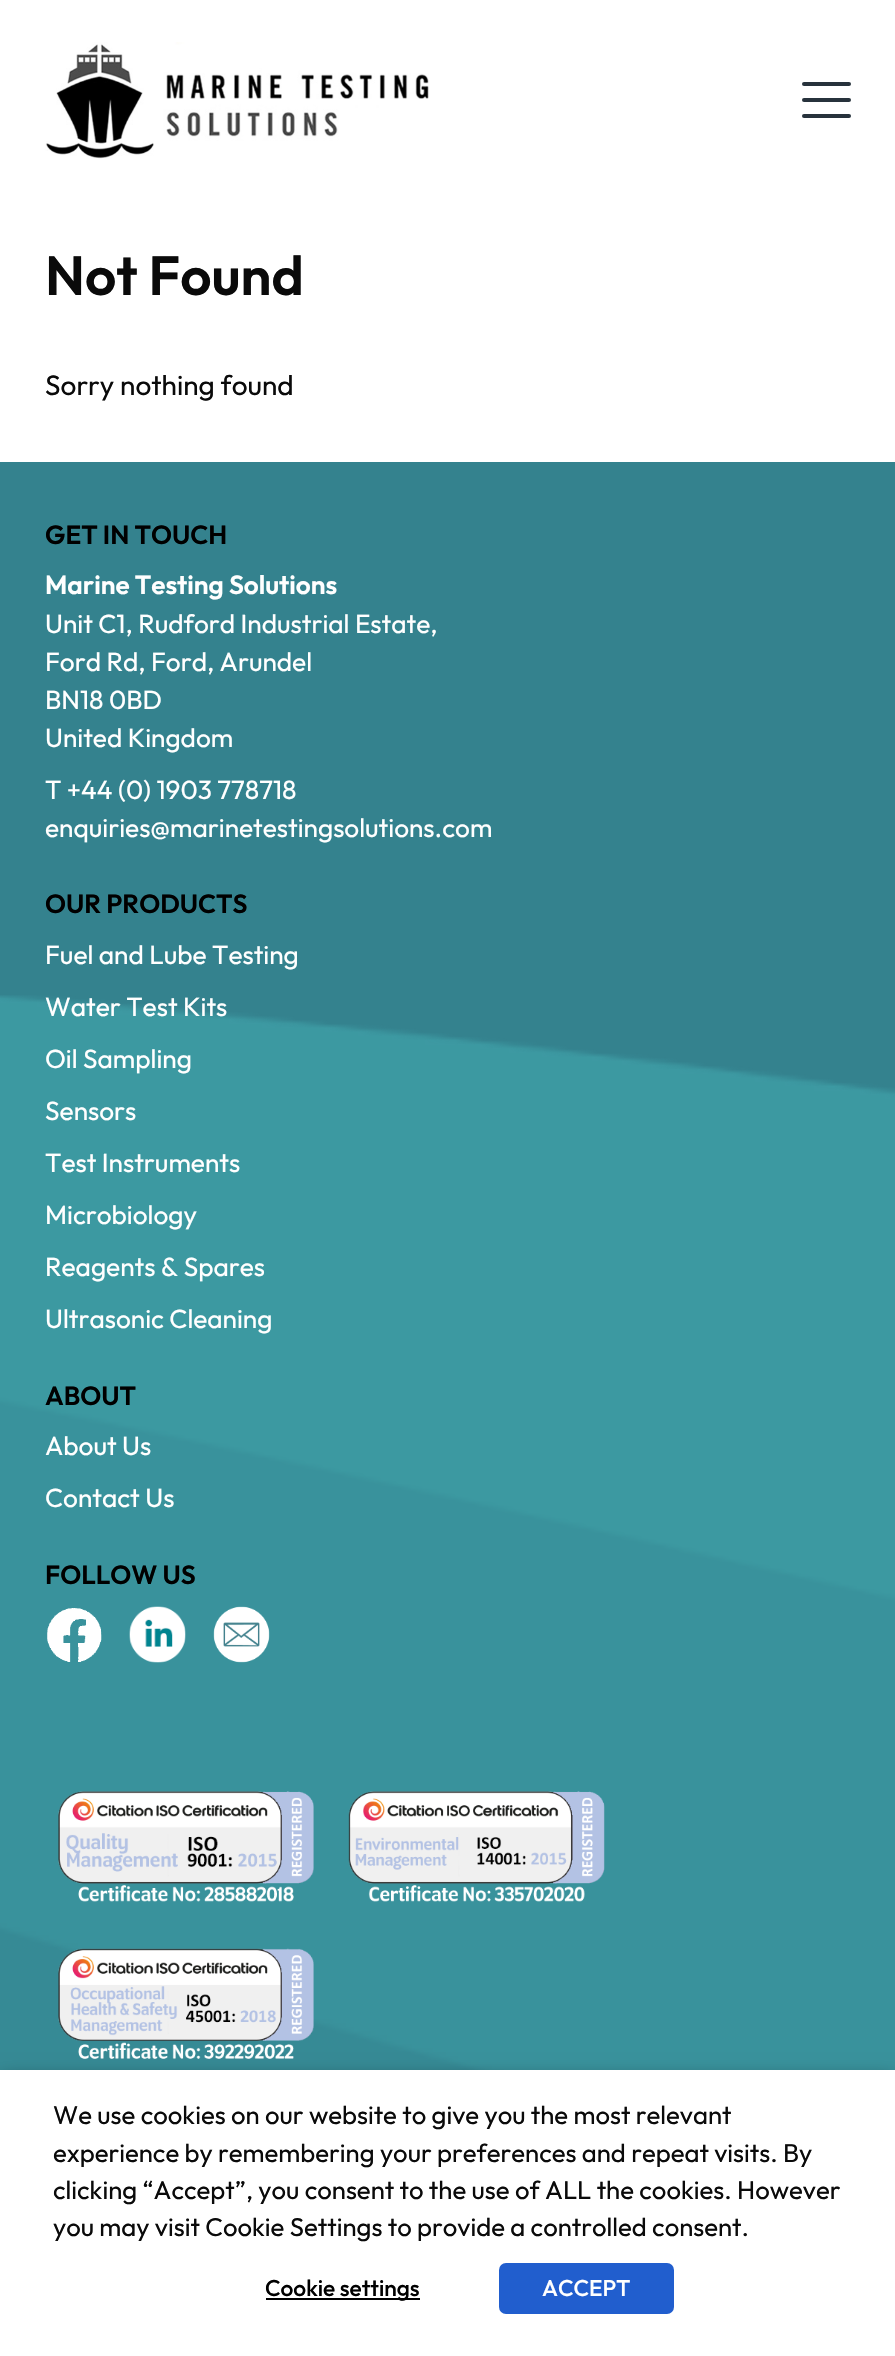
void draw(SkCanvas* canvas) {
	SkPaint fill;
	fill.setAntiAlias(true);
	auto makeFont = [&](const char* family, int weight, float size, bool italic = false) {
		SkFontStyle style(weight, SkFontStyle::kNormal_Width,
			italic ? SkFontStyle::kItalic_Slant : SkFontStyle::kUpright_Slant);
		SkFont result(fontMgr->matchFamilyStyle(family, style), size);
		result.setSubpixel(true);
		return result;
	};
	auto text = [&](const char* s, float x, float y, const SkFont& font) {
		canvas->drawString(s, x, y, font, fill);
	};
	auto box = [&](float l, float t, float r, float b) {
		canvas->drawRect(SkRect::MakeLTRB(l, t, r, b), fill);
	};
	auto roundBox = [&](float l, float t, float r, float b, float radius) {
		canvas->drawRoundRect(SkRect::MakeLTRB(l, t, r, b), radius, radius, fill);
	};
	auto picture = [&](const char* path, float l, float t, float r, float b) {
		auto image = SkImages::DeferredFromEncodedData(SkData::MakeFromFileName(path));
		canvas->drawImageRect(image, SkRect::MakeLTRB(l, t, r, b), SkSamplingOptions());
	};
	canvas->clear(0xFFFFFFFF);
	picture("image0.png", 45, 42, 429, 159);
	fill.setColor(0xFF27323C);
	roundBox(802, 82, 851, 86, 2);
	roundBox(802, 98, 851, 102, 2);
	roundBox(802, 114, 851, 118, 2);
	fill.setColor(0xFF34828E);
	box(0, 462, 895, 2070);
	picture("image7.png", 0, 995, 895, 2070);
	picture("image1.png", 47, 1608, 102, 1662);
	picture("image2.png", 129, 1606, 186, 1663);
	picture("image3.png", 213, 1606, 270, 1663);
	picture("image4.png", 58, 1791, 314, 1902);
	picture("image5.png", 348, 1791, 605, 1902);
	picture("image6.png", 58, 1948, 314, 2059);
	fill.setColor(0x80000000);
	fill.setMaskFilter(SkMaskFilter::MakeBlur(kNormal_SkBlurStyle, 9));
	canvas->drawRect(SkRect::MakeLTRB(0, 2079, 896, 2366), fill);
	fill.setMaskFilter(nullptr);
	fill.setColor(0xFFFFFFFF);
	box(0, 2070, 895, 2356);
	fill.setColor(0xFF000000);
	box(266, 2298, 420, 2300);
	fill.setColor(0xFF215ECE);
	roundBox(499, 2263, 674, 2314, 7);
	auto font1 = makeFont("Outfit", 600, 55);
	fill.setColor(0xFF0A0A0A);
	text("Not Found", 45, 295, font1);
	auto font2 = makeFont("Outfit", 400, 28);
	text("Sorry nothing found", 45, 395, font2);
	auto font3 = makeFont("Outfit", 600, 26.25f);
	fill.setColor(0xFF000000);
	text("GET IN TOUCH", 45, 544, font3);
	fill.setColor(0xFFFFFFFF);
	text("Marine Testing Solutions", 45, 594, font3);
	auto font4 = makeFont("Outfit", 400, 26.25f);
	text("Unit C1, Rudford Industrial Estate,", 45, 633, font4);
	text("Ford Rd, Ford, Arundel", 45, 671, font4);
	text("BN18 0BD", 45, 709, font4);
	text("United Kingdom", 45, 747, font4);
	text("T +44 (0) 1903 778718", 45, 799, font4);
	text("enquiries@marinetestingsolutions.com", 45, 837, font4);
	fill.setColor(0xFF000000);
	text("OUR PRODUCTS", 45, 913, font3);
	fill.setColor(0xFFFFFFFF);
	text("Fuel and Lube Testing", 45, 964, font4);
	text("Water Test Kits", 45, 1016, font4);
	text("Oil Sampling", 45, 1068, font4);
	text("Sensors", 45, 1120, font4);
	text("Test Instruments", 45, 1172, font4);
	text("Microbiology", 45, 1224, font4);
	text("Reagents & Spares", 45, 1276, font4);
	text("Ultrasonic Cleaning", 45, 1328, font4);
	fill.setColor(0xFF000000);
	text("ABOUT", 45, 1405, font3);
	fill.setColor(0xFFFFFFFF);
	text("About Us", 45, 1455, font4);
	text("Contact Us", 45, 1507, font4);
	fill.setColor(0xFF000000);
	text("FOLLOW US", 45, 1584, font3);
	auto font5 = makeFont("Outfit", 400, 25.7f);
	fill.setColor(0xFF0A0A0A);
	text("We use cookies on our website to give you the most relevant", 53, 2124, font5);
	text("experience by remembering your preferences and repeat visits. By", 53, 2162, font5);
	text("clicking “Accept”, you consent to the use of ALL the cookies. However", 53, 2199, font5);
	text("you may visit Cookie Settings to provide a controlled consent.", 53, 2236, font5);
	auto font6 = makeFont("Outfit", 500, 22.75f);
	fill.setColor(0xFF000000);
	text("Cookie settings", 265, 2296, font6);
	fill.setColor(0xFFFFFFFF);
	text("ACCEPT", 542, 2296, font6);
}
